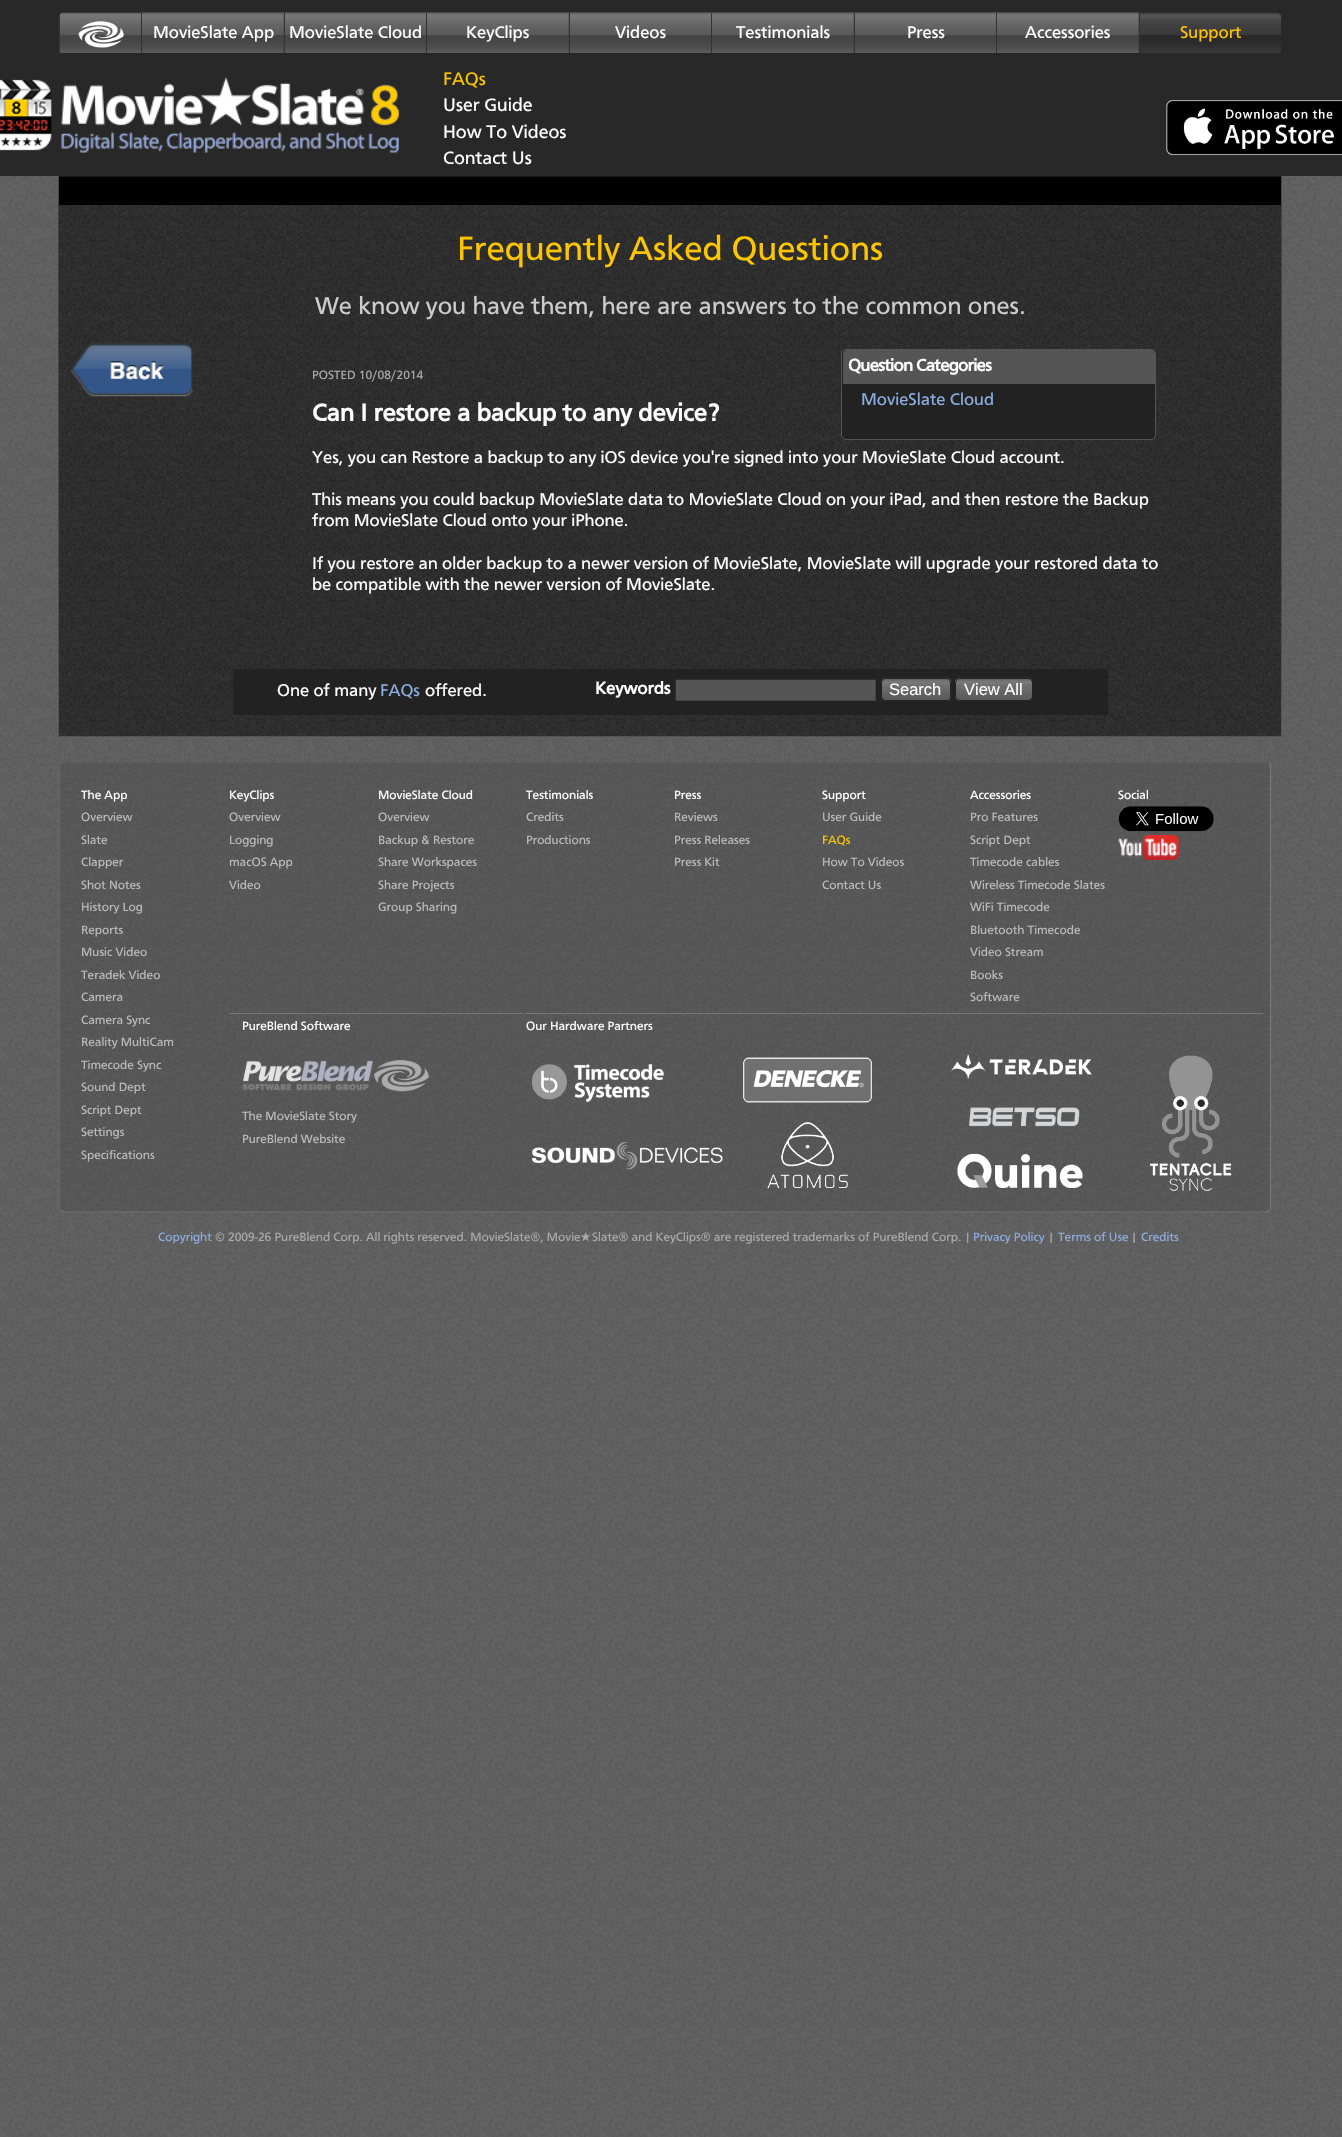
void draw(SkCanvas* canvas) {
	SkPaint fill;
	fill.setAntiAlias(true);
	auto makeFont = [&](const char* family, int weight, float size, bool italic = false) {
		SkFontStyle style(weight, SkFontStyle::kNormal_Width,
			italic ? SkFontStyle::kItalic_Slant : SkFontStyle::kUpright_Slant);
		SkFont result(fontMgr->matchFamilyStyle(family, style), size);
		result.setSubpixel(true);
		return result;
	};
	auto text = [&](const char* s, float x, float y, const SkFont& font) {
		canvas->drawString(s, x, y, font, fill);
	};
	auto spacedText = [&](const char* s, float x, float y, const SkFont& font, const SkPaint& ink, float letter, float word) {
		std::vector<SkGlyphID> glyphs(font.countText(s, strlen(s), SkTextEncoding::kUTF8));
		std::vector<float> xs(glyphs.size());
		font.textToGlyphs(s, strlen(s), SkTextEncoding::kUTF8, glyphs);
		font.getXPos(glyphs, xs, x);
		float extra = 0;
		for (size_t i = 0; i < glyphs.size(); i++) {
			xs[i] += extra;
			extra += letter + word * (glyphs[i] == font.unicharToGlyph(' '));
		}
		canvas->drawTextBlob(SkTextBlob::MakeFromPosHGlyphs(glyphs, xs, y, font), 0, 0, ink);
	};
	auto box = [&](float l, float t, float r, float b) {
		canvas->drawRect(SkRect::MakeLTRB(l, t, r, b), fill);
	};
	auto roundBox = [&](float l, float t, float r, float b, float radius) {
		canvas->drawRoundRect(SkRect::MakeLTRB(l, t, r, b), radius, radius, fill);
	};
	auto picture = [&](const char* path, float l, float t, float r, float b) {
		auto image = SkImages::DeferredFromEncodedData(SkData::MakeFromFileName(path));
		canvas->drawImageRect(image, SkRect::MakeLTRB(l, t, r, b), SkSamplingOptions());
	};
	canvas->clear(0xFFFFFFFF);
	picture("image0.png", 0, 176, 1342, 2137);
	fill.setColor(0xFF282828);
	box(0, 0, 1342, 176);
	picture("image1.png", 58, 12, 141, 53);
	fill.setColor(0xFF333333);
	box(59, 15, 60, 55);
	picture("image2.png", 78, 21, 124, 48);
	picture("image3.png", 141, 12, 284, 53);
	box(141, 13, 142, 58);
	picture("image4.png", 283, 12, 427, 53);
	box(284, 13, 285, 58);
	picture("image5.png", 426, 12, 569, 53);
	box(426, 13, 427, 58);
	picture("image4.png", 568, 12, 712, 53);
	box(569, 13, 570, 58);
	picture("image5.png", 711, 12, 854, 53);
	box(711, 13, 712, 58);
	picture("image4.png", 853, 12, 997, 53);
	box(854, 13, 855, 58);
	picture("image5.png", 996, 12, 1139, 53);
	box(996, 13, 997, 58);
	picture("image6.png", 1139, 12, 1281, 53);
	box(1139, 13, 1140, 58);
	fill.setColor(0xFF282828);
	box(59, 53, 1140, 58);
	picture("image7.png", 0, 77, 399, 153);
	picture("image8.png", 1166, 100, 1342, 155);
	picture("image9.png", 58, 176, 1282, 696);
	picture("image10.png", 58, 205, 1282, 737);
	picture("image11.png", 71, 342, 193, 397);
	fill.setColor(0xFF222222);
	canvas->drawRoundRect(SkRect::MakeLTRB(841.5f, 349.5f, 1155.5f, 439.5f), 4.5f, 4.5f, fill);
	fill.setStyle(SkPaint::kStroke_Style);
	fill.setStrokeWidth(1);
	fill.setColor(0xFF555555);
	canvas->drawRoundRect(SkRect::MakeLTRB(841.5f, 349.5f, 1155.5f, 439.5f), 4.5f, 4.5f, fill);
	fill.setStyle(SkPaint::kFill_Style);
	canvas->drawPath(SkPathBuilder().moveTo(847, 350).lineTo(1151, 350).cubicTo(1153, 350, 1155, 352, 1155, 354).lineTo(1155, 384).lineTo(843, 384).lineTo(843, 354).cubicTo(843, 352, 845, 350, 847, 350).close().detach(), fill);
	fill.setColor(0xFF222222);
	box(233, 669, 1108, 715);
	fill.setColor(0xFF555555);
	box(676, 680, 875, 700);
	fill.setColor(0xFF2D2D2D);
	box(675, 679, 876, 680);
	fill.setColor(0xFF444444);
	box(875, 679, 876, 701);
	box(675, 700, 876, 701);
	fill.setColor(0xFF2D2D2D);
	box(675, 679, 676, 701);
	picture("image12.png", 881, 677, 952, 701);
	fill.setStyle(SkPaint::kStroke_Style);
	fill.setColor(0xFF222222);
	canvas->drawRoundRect(SkRect::MakeLTRB(881.5f, 678.5f, 950.5f, 700.5f), 4.5f, 4.5f, fill);
	picture("image13.png", 955, 677, 1033, 701);
	canvas->drawRoundRect(SkRect::MakeLTRB(955.5f, 678.5f, 1032.5f, 700.5f), 4.5f, 4.5f, fill);
	fill.setStyle(SkPaint::kFill_Style);
	fill.setColor(0x33333333);
	roundBox(59, 761, 1271, 1213, 5);
	fill.setStyle(SkPaint::kStroke_Style);
	fill.setStrokeWidth(1.2f);
	fill.setColor(0x33EEEEEE);
	canvas->drawPath(SkPathBuilder().moveTo(1269.5f, 763).cubicTo(1270, 764, 1270.5f, 765, 1270.5f, 766).lineTo(1270.5f, 1207.5f).cubicTo(1270.5f, 1208.5f, 1270, 1210, 1269.5f, 1210.5f).cubicTo(1268.5f, 1211.5f, 1267.5f, 1212, 1266, 1212).lineTo(64, 1212).cubicTo(62.5f, 1212, 61.5f, 1211.5f, 60.5f, 1210.5f).detach(), fill);
	fill.setColor(0x339F9F9F);
	canvas->drawPath(SkPathBuilder().moveTo(60.5f, 1210.5f).cubicTo(60, 1210, 59.5f, 1208.5f, 59.5f, 1207.5f).lineTo(59.5f, 766).cubicTo(59.5f, 765, 60, 764, 60.5f, 763).cubicTo(61.5f, 762.5f, 62.5f, 762, 64, 762).lineTo(1266, 762).cubicTo(1267.5f, 762, 1268.5f, 762.5f, 1269.5f, 763).detach(), fill);
	picture("image14.png", 1118, 806, 1214, 832);
	picture("image15.png", 1118, 835, 1179, 860);
	fill.setStyle(SkPaint::kFill_Style);
	fill.setColor(0xFF777777);
	box(229, 1013, 523, 1014);
	picture("image16.png", 242, 1060, 429, 1092);
	box(525, 1013, 1263, 1014);
	picture("image17.png", 532, 1054, 1232, 1191);
	auto font1 = makeFont("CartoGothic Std", 400, 17.5f);
	fill.setColor(0xFFFFFFFF);
	text("MovieSlate App", 153, 38, font1);
	text("MovieSlate Cloud", 289, 38, font1);
	text("KeyClips", 466, 38, font1);
	text("Videos", 615, 38, font1);
	text("Testimonials", 736, 38, font1);
	text("Press", 907, 38, font1);
	text("Accessories", 1025, 38, font1);
	fill.setColor(0xFFFDC501);
	text("Support", 1180, 38, font1);
	auto font2 = makeFont("CartoGothic Std", 400, 18.75f);
	text("FAQs", 443, 85, font2);
	fill.setColor(0xFFFFFFFF);
	text("User Guide", 443, 111, font2);
	text("How To Videos", 443, 138, font2);
	text("Contact Us", 443, 164, font2);
	auto font3 = makeFont("CartoGothic Std", 400, 35);
	fill.setColor(0xFFFDC501);
	text("Frequently Asked Questions", 457, 260, font3);
	auto font4 = makeFont("CartoGothic Std", 400, 25);
	fill.setColor(0xFFCCCCCC);
	text("We know you have them, here are answers to the common ones.", 315, 314, font4);
	auto font5 = makeFont("CartoGothic Std", 400, 12.5f);
	fill.setColor(0xFFAAAAAA);
	text("POSTED 10/08/2014", 312, 379, font5);
	auto font6 = makeFont("CartoGothic Std", 700, 17.5f);
	fill.setColor(0xFFFFFFFF);
	spacedText("Question Categories", 848, 371, font6, fill, -0.6f, 0);
	fill.setColor(0xFF8DADE0);
	text("MovieSlate Cloud", 861, 405, font1);
	auto font7 = makeFont("CartoGothic Std", 700, 25);
	fill.setColor(0xFFFFFFFF);
	text("Can I restore a backup to any device?", 312, 421, font7);
	text("Yes, you can Restore a backup to any iOS device you're signed into your MovieSlate Cloud account.", 312, 463, font1);
	text("This means you could backup MovieSlate data to MovieSlate Cloud on your iPad, and then restore the Backup", 312, 505, font1);
	text("from MovieSlate Cloud onto your iPhone.", 312, 526, font1);
	text("If you restore an older backup to a newer version of MovieSlate, MovieSlate will upgrade your restored data to", 312, 569, font1);
	text("be compatible with the newer version of MovieSlate.", 312, 590, font1);
	text("One of many", 277, 696, font1);
	fill.setColor(0xFF8DADE0);
	text("FAQs", 380, 696, font1);
	fill.setColor(0xFFFFFFFF);
	text("offered.", 425, 696, font1);
	text("Keywords", 595, 694, font6);
	auto font8 = makeFont("Liberation Sans", 400, 16.5f);
	text("Search", 889, 695, font8);
	text("View All", 964, 695, font8);
	text("The App", 81, 799, font5);
	fill.setColor(0xFFBBBBBB);
	text("Overview", 81, 821, font5);
	text("Slate", 81, 844, font5);
	text("Clapper", 81, 866, font5);
	text("Shot Notes", 81, 889, font5);
	text("History Log", 81, 911, font5);
	text("Reports", 81, 934, font5);
	text("Music Video", 81, 956, font5);
	text("Teradek Video", 81, 979, font5);
	text("Camera", 81, 1001, font5);
	text("Camera Sync", 81, 1024, font5);
	text("Reality MultiCam", 81, 1046, font5);
	text("Timecode Sync", 81, 1069, font5);
	text("Sound Dept", 81, 1091, font5);
	text("Script Dept", 81, 1114, font5);
	text("Settings", 81, 1136, font5);
	text("Specifications", 81, 1159, font5);
	fill.setColor(0xFFFFFFFF);
	text("KeyClips", 229, 799, font5);
	fill.setColor(0xFFBBBBBB);
	text("Overview", 229, 821, font5);
	text("Logging", 229, 844, font5);
	text("macOS App", 229, 866, font5);
	text("Video", 229, 889, font5);
	fill.setColor(0xFFFFFFFF);
	text("MovieSlate Cloud", 378, 799, font5);
	fill.setColor(0xFFBBBBBB);
	text("Overview", 378, 821, font5);
	text("Backup & Restore", 378, 844, font5);
	text("Share Workspaces", 378, 866, font5);
	text("Share Projects", 378, 889, font5);
	text("Group Sharing", 378, 911, font5);
	fill.setColor(0xFFFFFFFF);
	text("Testimonials", 526, 799, font5);
	fill.setColor(0xFFBBBBBB);
	text("Credits", 526, 821, font5);
	text("Productions", 526, 844, font5);
	fill.setColor(0xFFFFFFFF);
	text("Press", 674, 799, font5);
	fill.setColor(0xFFBBBBBB);
	text("Reviews", 674, 821, font5);
	text("Press Releases", 674, 844, font5);
	text("Press Kit", 674, 866, font5);
	fill.setColor(0xFFFFFFFF);
	text("Support", 822, 799, font5);
	fill.setColor(0xFFBBBBBB);
	text("User Guide", 822, 821, font5);
	fill.setColor(0xFFFDC501);
	text("FAQs", 822, 844, font5);
	fill.setColor(0xFFBBBBBB);
	text("How To Videos", 822, 866, font5);
	text("Contact Us", 822, 889, font5);
	fill.setColor(0xFFFFFFFF);
	text("Accessories", 970, 799, font5);
	fill.setColor(0xFFBBBBBB);
	text("Pro Features", 970, 821, font5);
	text("Script Dept", 970, 844, font5);
	text("Timecode cables", 970, 866, font5);
	text("Wireless Timecode Slates", 970, 889, font5);
	text("WiFi Timecode", 970, 911, font5);
	text("Bluetooth Timecode", 970, 934, font5);
	text("Video Stream", 970, 956, font5);
	text("Books", 970, 979, font5);
	text("Software", 970, 1001, font5);
	fill.setColor(0xFFFFFFFF);
	text("Social", 1118, 799, font5);
	text("PureBlend Software", 242, 1030, font5);
	fill.setColor(0xFFBBBBBB);
	text("The MovieSlate Story", 242, 1120, font5);
	text("PureBlend Website", 242, 1143, font5);
	fill.setColor(0xFFFFFFFF);
	text("Our Hardware Partners", 526, 1030, font5);
	fill.setColor(0xFF8DADE0);
	text("Copyright", 158, 1241, font5);
	fill.setColor(0xFFAAAAAA);
	text("© 2009-26 PureBlend Corp. All rights reserved. MovieSlate®, Movie", 215, 1241, font5);
	auto font9 = makeFont("DejaVu Sans", 400, 12.5f);
	text("★", 580, 1241, font9);
	text("Slate® and KeyClips® are registered trademarks of PureBlend Corp. |", 592, 1241, font5);
	fill.setColor(0xFF8DADE0);
	text("Privacy Policy", 973, 1241, font5);
	fill.setColor(0xFFAAAAAA);
	text("|", 1048, 1241, font5);
	fill.setColor(0xFF8DADE0);
	text("Terms of Use", 1058, 1241, font5);
	fill.setColor(0xFFAAAAAA);
	text("|", 1131, 1241, font5);
	fill.setColor(0xFF8DADE0);
	text("Credits", 1141, 1241, font5);
}
